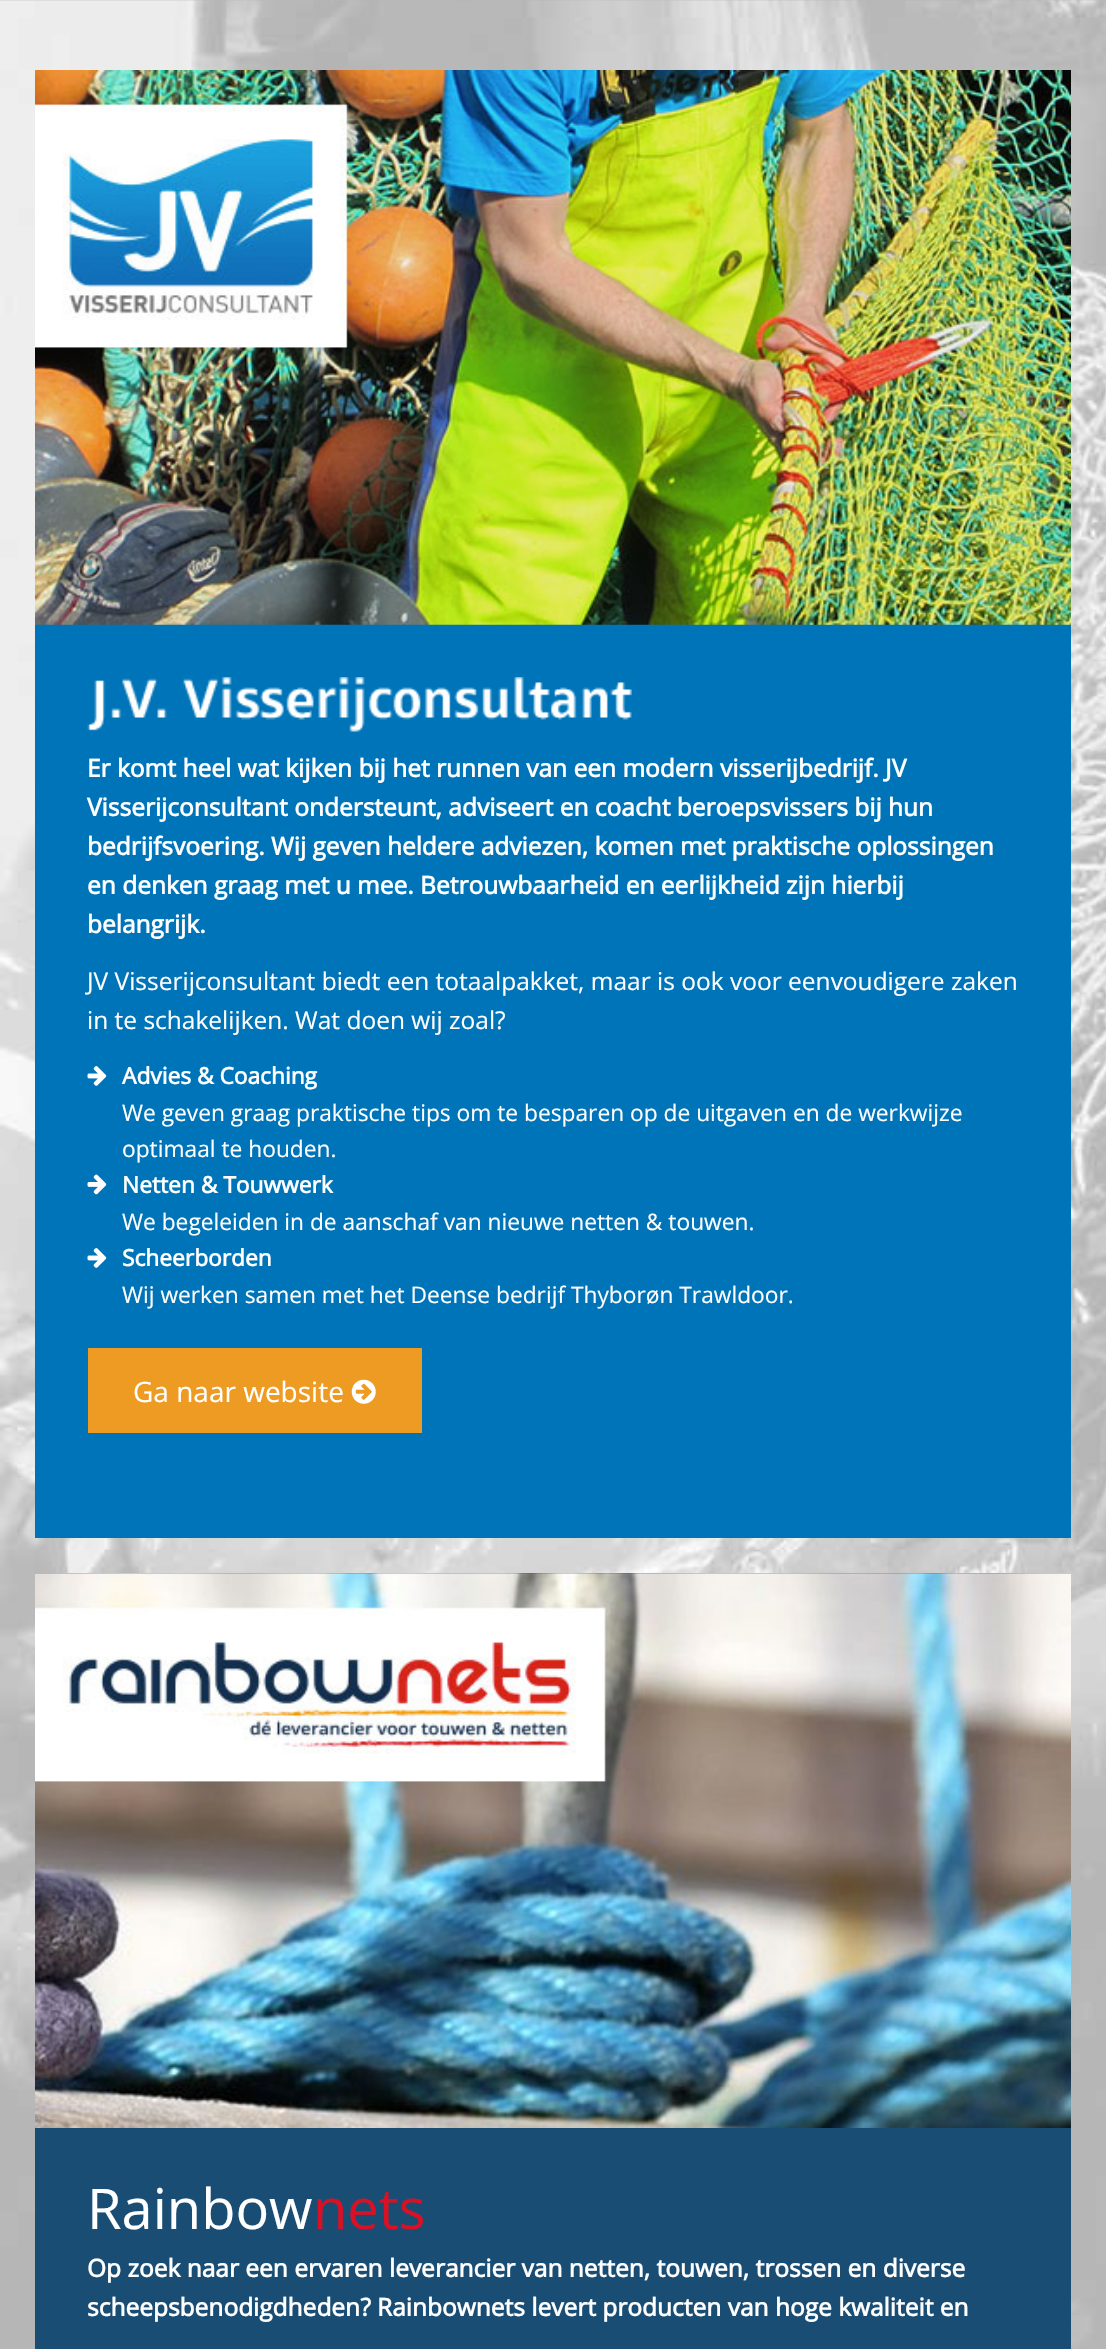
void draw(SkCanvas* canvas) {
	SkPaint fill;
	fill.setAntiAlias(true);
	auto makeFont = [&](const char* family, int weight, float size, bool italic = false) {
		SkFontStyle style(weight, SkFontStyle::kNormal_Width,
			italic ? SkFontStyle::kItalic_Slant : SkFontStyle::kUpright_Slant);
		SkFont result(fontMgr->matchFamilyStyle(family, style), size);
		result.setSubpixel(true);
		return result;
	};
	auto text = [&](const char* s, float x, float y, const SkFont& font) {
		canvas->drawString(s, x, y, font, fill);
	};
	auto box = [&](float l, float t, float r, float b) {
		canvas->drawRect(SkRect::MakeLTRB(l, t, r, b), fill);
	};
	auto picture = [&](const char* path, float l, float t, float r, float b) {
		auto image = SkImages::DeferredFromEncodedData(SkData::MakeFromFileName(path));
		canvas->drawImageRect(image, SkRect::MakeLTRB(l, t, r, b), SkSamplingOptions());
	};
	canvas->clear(0xFFFFFFFF);
	picture("image0.png", 0, 0, 1106, 2349);
	fill.setColor(0xFF0074B8);
	box(35, 624, 1071, 1538);
	picture("image1.png", 35, 70, 1071, 625);
	picture("image2.png", 87, 677, 632, 732);
	picture("image3.png", 87, 1066, 107, 1086);
	picture("image4.png", 87, 1174, 107, 1195);
	picture("image3.png", 87, 1248, 107, 1268);
	fill.setColor(0xFFED9B23);
	box(88, 1348, 422, 1433);
	picture("image5.png", 351, 1379, 376, 1404);
	fill.setColor(0xFF194D73);
	box(35, 1573, 1071, 2349);
	picture("image6.png", 35, 1573, 1071, 2128);
	auto font1 = makeFont("Open Sans", 700, 24.5f);
	fill.setColor(0xFFFFFFFF);
	text("Er komt heel wat kijken bij het runnen van een modern visserijbedrijf. JV", 87, 777, font1);
	text("Visserijconsultant ondersteunt, adviseert en coacht beroepsvissers bij hun", 87, 816, font1);
	text("bedrijfsvoering. Wij geven heldere adviezen, komen met praktische oplossingen", 87, 855, font1);
	text("en denken graag met u mee. Betrouwbaarheid en eerlijkheid zijn hierbij", 87, 894, font1);
	text("belangrijk.", 87, 933, font1);
	auto font2 = makeFont("Open Sans", 400, 24.5f);
	text("JV Visserijconsultant biedt een totaalpakket, maar is ook voor eenvoudigere zaken", 87, 990, font2);
	text("in te schakelijken. Wat doen wij zoal?", 87, 1029, font2);
	auto font3 = makeFont("Open Sans", 700, 22.75f);
	text("Advies & Coaching", 122, 1084, font3);
	auto font4 = makeFont("Open Sans", 400, 22.75f);
	text("We geven graag praktische tips om te besparen op de uitgaven en de werkwijze", 122, 1121, font4);
	text("optimaal te houden.", 122, 1157, font4);
	text("Netten & Touwwerk", 122, 1193, font3);
	text("We begeleiden in de aanschaf van nieuwe netten & touwen.", 122, 1230, font4);
	text("Scheerborden", 122, 1266, font3);
	text("Wij werken samen met het Deense bedrijf Thyborøn Trawldoor.", 122, 1303, font4);
	auto font5 = makeFont("Open Sans", 400, 28);
	text("Ga naar website", 133, 1402, font5);
	auto font6 = makeFont("Open Sans", 400, 56);
	text("Rainbow", 87, 2229, font6);
	fill.setColor(0xFFDA1025);
	text("nets", 313, 2229, font6);
	fill.setColor(0xFFFFFFFF);
	text("Op zoek naar een ervaren leverancier van netten, touwen, trossen en diverse", 87, 2277, font1);
	text("scheepsbenodigdheden? Rainbownets levert producten van hoge kwaliteit en", 87, 2316, font1);
}
